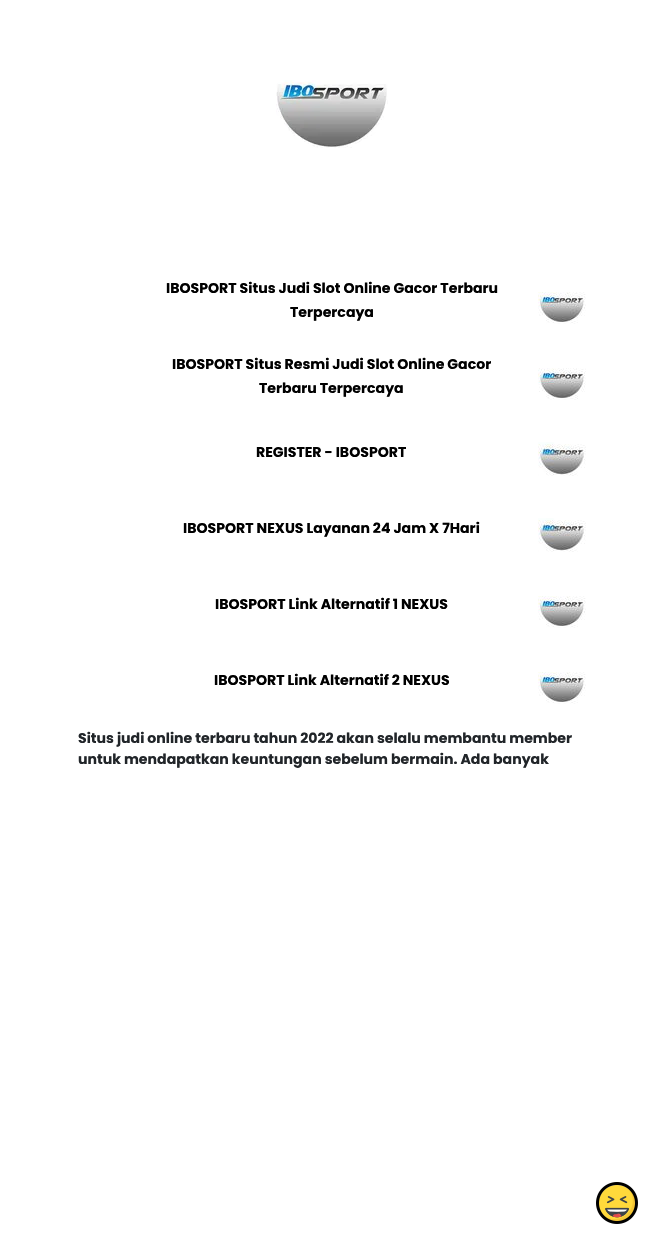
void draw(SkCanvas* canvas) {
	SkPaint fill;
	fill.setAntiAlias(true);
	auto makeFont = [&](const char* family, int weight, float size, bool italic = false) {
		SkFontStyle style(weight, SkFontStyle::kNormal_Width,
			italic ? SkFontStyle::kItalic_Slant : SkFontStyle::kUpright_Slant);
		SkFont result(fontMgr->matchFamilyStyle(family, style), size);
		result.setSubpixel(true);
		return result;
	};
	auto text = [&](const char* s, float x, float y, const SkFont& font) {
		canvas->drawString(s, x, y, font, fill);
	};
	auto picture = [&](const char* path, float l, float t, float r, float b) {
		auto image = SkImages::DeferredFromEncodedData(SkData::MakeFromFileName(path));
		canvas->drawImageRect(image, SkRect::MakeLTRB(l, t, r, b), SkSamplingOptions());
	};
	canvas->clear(0xFFFFFFFF);
	picture("image0.png", 276, 80, 388, 148);
	picture("image1.png", 538, 292, 586, 324);
	picture("image2.png", 538, 368, 586, 400);
	picture("image3.png", 538, 442, 586, 476);
	picture("image3.png", 538, 518, 586, 552);
	picture("image1.png", 538, 596, 586, 628);
	picture("image1.png", 538, 672, 586, 704);
	picture("image4.png", 596, 1182, 638, 1224);
	auto font1 = makeFont("Poppins", 700, 14.1f);
	fill.setColor(0xFF000000);
	text("IBOSPORT Situs Judi Slot Online Gacor Terbaru", 166, 293, font1);
	text("Terpercaya", 290, 317, font1);
	text("IBOSPORT Situs Resmi Judi Slot Online Gacor", 172, 369, font1);
	text("Terbaru Terpercaya", 259, 393, font1);
	text("REGISTER - IBOSPORT", 256, 457, font1);
	text("IBOSPORT NEXUS Layanan 24 Jam X 7Hari", 183, 533, font1);
	text("IBOSPORT Link Alternatif 1 NEXUS", 215, 609, font1);
	text("IBOSPORT Link Alternatif 2 NEXUS", 214, 685, font1);
	fill.setColor(0xFF212529);
	text("Situs judi online terbaru tahun 2022 akan selalu membantu member", 78, 743, font1);
	text("untuk mendapatkan keuntungan sebelum bermain. Ada banyak", 78, 764, font1);
}
